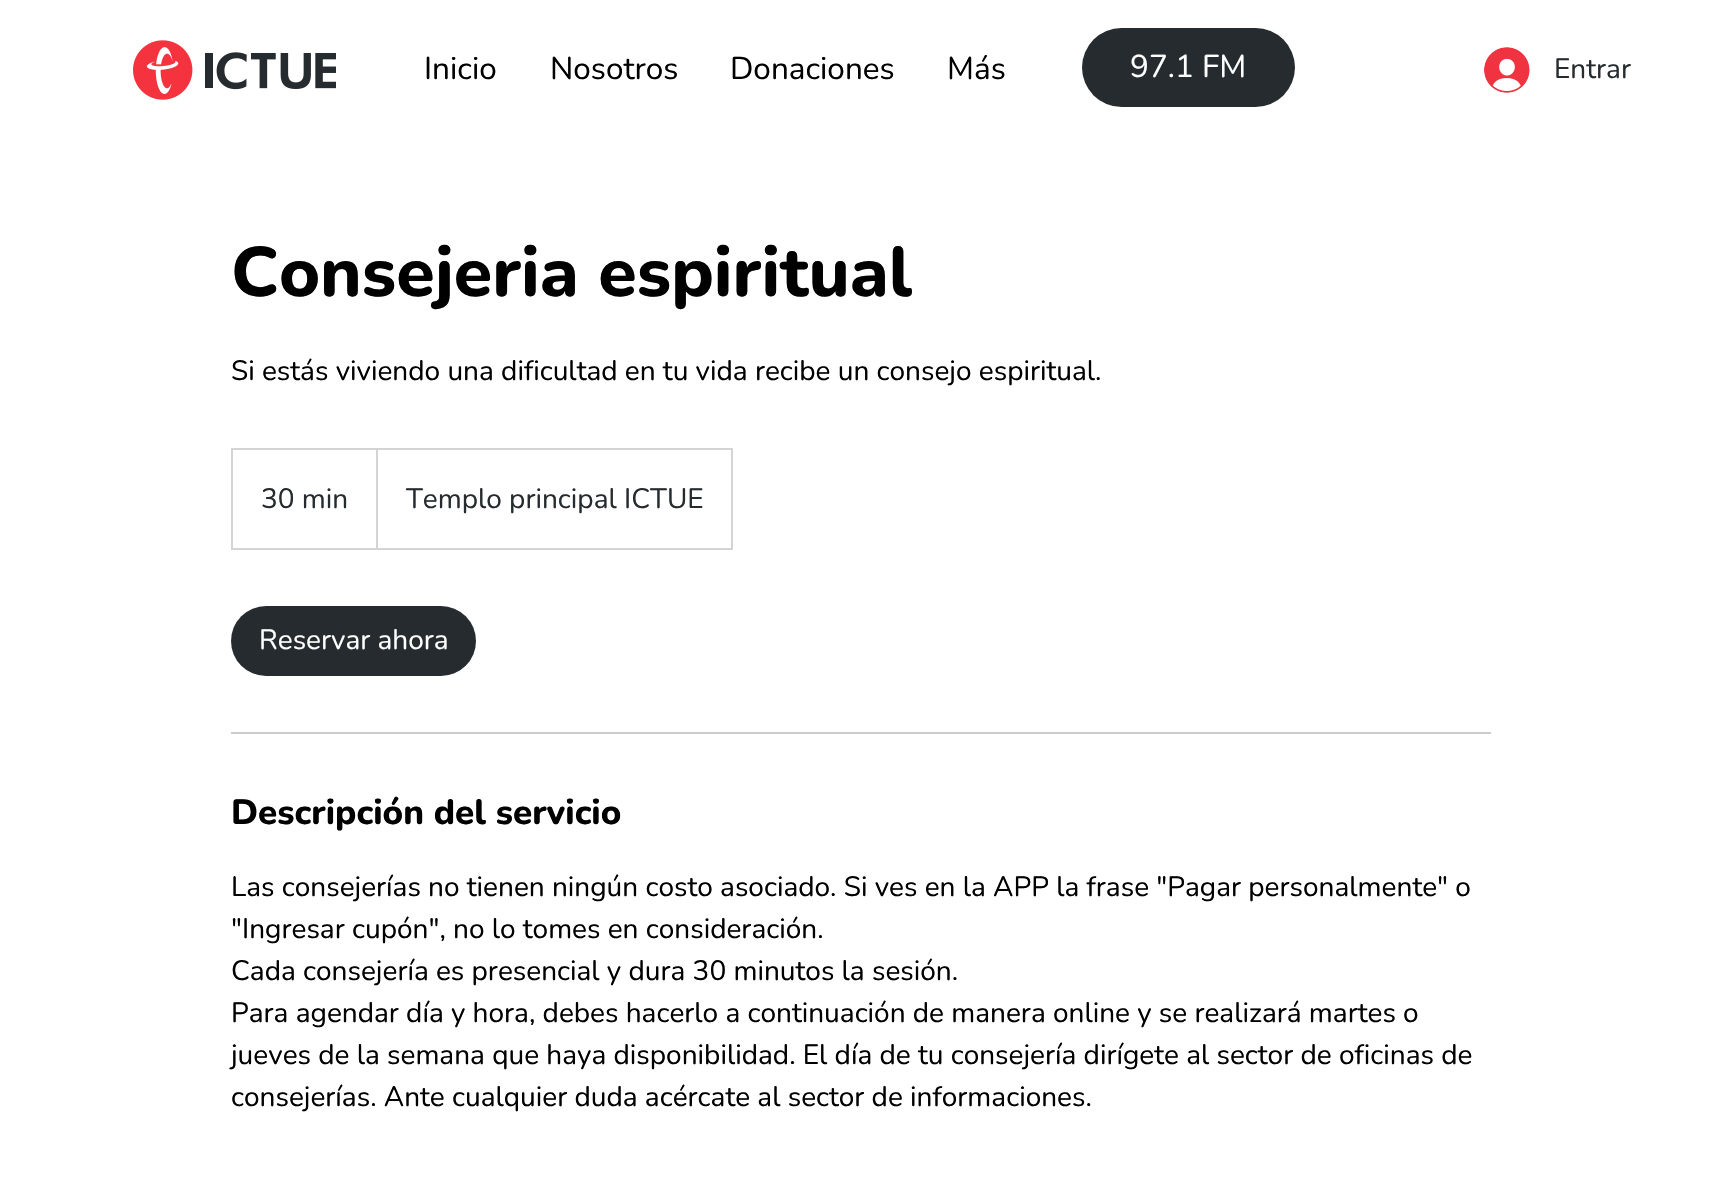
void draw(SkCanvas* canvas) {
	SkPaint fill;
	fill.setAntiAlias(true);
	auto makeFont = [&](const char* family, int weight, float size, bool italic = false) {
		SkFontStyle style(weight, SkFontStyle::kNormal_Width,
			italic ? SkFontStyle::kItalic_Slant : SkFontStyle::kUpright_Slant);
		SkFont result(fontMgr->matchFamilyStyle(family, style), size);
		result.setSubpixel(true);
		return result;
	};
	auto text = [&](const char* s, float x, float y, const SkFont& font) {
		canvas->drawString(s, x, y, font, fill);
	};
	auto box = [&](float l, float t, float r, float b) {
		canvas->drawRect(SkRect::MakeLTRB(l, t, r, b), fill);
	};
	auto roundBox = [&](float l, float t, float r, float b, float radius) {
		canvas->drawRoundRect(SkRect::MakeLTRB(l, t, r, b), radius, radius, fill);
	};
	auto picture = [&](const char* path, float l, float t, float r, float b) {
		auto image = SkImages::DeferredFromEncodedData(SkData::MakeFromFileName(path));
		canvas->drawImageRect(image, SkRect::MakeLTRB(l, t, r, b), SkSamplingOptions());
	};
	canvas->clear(0xFFFFFFFF);
	picture("image0.png", 133, 40, 336, 100);
	fill.setColor(0xFF252B2E);
	roundBox(1082, 28, 1295, 107, 39.5f);
	picture("image1.png", 1484, 47, 1530, 93);
	fill.setStyle(SkPaint::kStroke_Style);
	fill.setStrokeWidth(2);
	fill.setColor(0xFFD3D5D5);
	canvas->drawRect(SkRect::MakeLTRB(232, 449, 732, 549), fill);
	canvas->save();
	canvas->clipRect(SkRect::MakeLTRB(233, 450, 732, 548));
	fill.setStyle(SkPaint::kFill_Style);
	canvas->drawPath(SkPathBuilder().moveTo(376, 548).lineTo(376, 448).lineTo(378, 450).lineTo(378, 548).close().detach(), fill);
	canvas->restore();
	fill.setColor(0xFF252B2E);
	roundBox(231, 606, 476, 676, 35);
	fill.setColor(0xFFCCCCCC);
	box(231, 732, 1491, 734);
	auto font1 = makeFont("Nunito", 400, 31.5f);
	fill.setColor(0xFF000000);
	text("Inicio", 424, 79, font1);
	text("Nosotros", 550, 79, font1);
	text("Donaciones", 730, 79, font1);
	text("Más", 947, 79, font1);
	fill.setColor(0xFFFFFFFF);
	text("97.1 FM", 1130, 77, font1);
	auto font2 = makeFont("Nunito", 400, 28);
	fill.setColor(0xFF252B2E);
	text("Entrar", 1554, 78, font2);
	auto font3 = makeFont("Nunito", 800, 70);
	fill.setColor(0xFF000000);
	text("Consejeria espiritual", 231, 296, font3);
	text("Si estás viviendo una dificultad en tu vida recibe un consejo espiritual.", 231, 380, font2);
	fill.setColor(0xFF252B2E);
	text("30 min", 261, 508, font2);
	text("Templo principal ICTUE", 406, 508, font2);
	fill.setColor(0xFFFFFFFF);
	text("Reservar ahora", 259, 649, font2);
	auto font4 = makeFont("Nunito", 800, 35);
	fill.setColor(0xFF000000);
	text("Descripción del servicio", 231, 824, font4);
	text("Las consejerías no tienen ningún costo asociado. Si ves en la APP la frase \"Pagar personalmente\" o", 231, 896, font2);
	text("\"Ingresar cupón\", no lo tomes en consideración.", 231, 938, font2);
	text("Cada consejería es presencial y dura 30 minutos la sesión.", 231, 980, font2);
	text("Para agendar día y hora, debes hacerlo a continuación de manera online y se realizará martes o", 231, 1022, font2);
	text("jueves de la semana que haya disponibilidad. El día de tu consejería dirígete al sector de oficinas de", 231, 1064, font2);
	text("consejerías. Ante cualquier duda acércate al sector de informaciones.", 231, 1106, font2);
}
